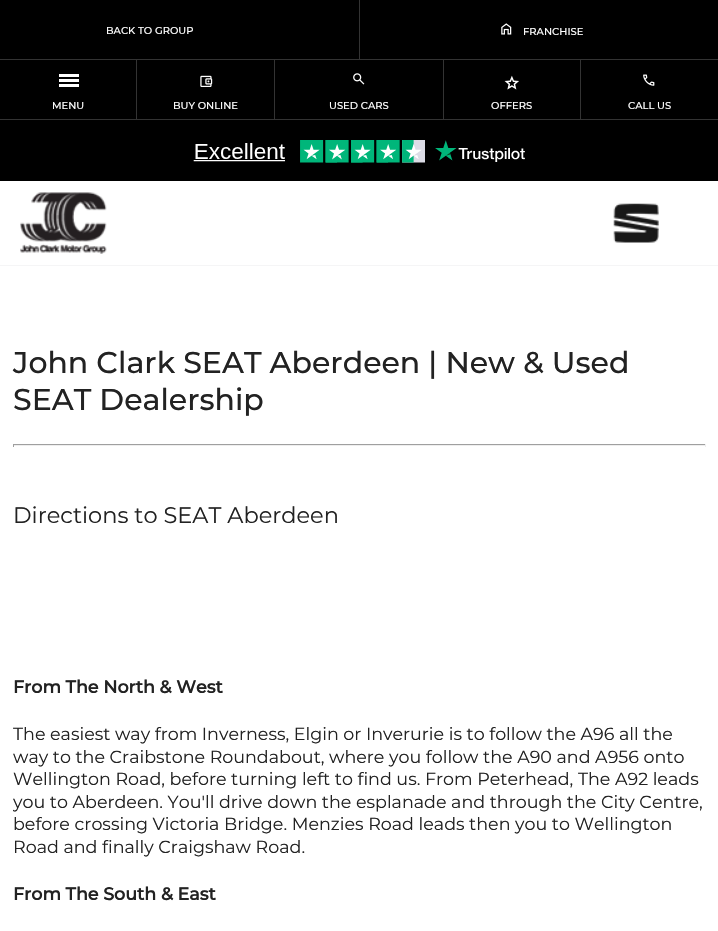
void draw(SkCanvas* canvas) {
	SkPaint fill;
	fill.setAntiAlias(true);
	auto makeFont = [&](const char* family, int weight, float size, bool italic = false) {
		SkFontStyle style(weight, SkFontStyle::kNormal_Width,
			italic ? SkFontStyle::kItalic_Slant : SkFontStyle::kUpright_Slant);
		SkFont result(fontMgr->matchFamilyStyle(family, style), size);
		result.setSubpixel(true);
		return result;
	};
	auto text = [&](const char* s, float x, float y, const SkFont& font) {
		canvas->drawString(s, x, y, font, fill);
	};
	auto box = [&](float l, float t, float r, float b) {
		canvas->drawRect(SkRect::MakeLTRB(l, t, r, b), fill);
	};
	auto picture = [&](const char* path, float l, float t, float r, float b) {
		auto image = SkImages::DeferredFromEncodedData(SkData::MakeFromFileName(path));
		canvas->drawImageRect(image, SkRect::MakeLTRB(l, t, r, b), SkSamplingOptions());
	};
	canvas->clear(0xFFFFFFFF);
	fill.setColor(0xFF000000);
	box(0, 0, 718, 119);
	fill.setColor(0xFF333333);
	box(0, 59, 718, 60);
	box(359, 0, 360, 59);
	picture("image0.png", 501, 23, 512, 35);
	box(136, 60, 137, 119);
	fill.setColor(0xFFFFFFFF);
	box(59, 79, 79, 82);
	box(59, 74, 79, 77);
	box(59, 84, 79, 87);
	fill.setColor(0xFF333333);
	box(274, 60, 275, 119);
	picture("image1.png", 200, 75, 213, 87);
	box(443, 60, 444, 119);
	picture("image2.png", 353, 73, 365, 85);
	box(580, 60, 581, 119);
	picture("image3.png", 504, 75, 519, 90);
	picture("image4.png", 643, 74, 655, 86);
	fill.setColor(0xFF000000);
	box(0, 120, 718, 181);
	fill.setColor(0xFF333333);
	box(0, 119, 718, 120);
	picture("image5.png", 193, 140, 525, 163);
	picture("image6.png", 20, 192, 107, 254);
	picture("image7.png", 613, 203, 659, 243);
	fill.setColor(0xFFF5F5F6);
	box(0, 265, 718, 266);
	fill.setColor(0xFF9F9F9F);
	box(13, 444, 706, 445);
	fill.setColor(0xFFEEEEEE);
	box(705, 444, 706, 447);
	box(13, 445, 706, 446);
	fill.setColor(0xFF9F9F9F);
	box(13, 444, 14, 447);
	auto font1 = makeFont("Montserrat", 100, 10);
	fill.setColor(0xFFFFFFFF);
	text("BACK TO GROUP", 106, 34, font1);
	text("FRANCHISE", 523, 35, font1);
	text("MENU", 52, 109, font1);
	text("BUY ONLINE", 173, 109, font1);
	text("USED CARS", 329, 109, font1);
	text("OFFERS", 491, 109, font1);
	text("CALL US", 628, 109, font1);
	auto font2 = makeFont("Montserrat", 100, 30);
	fill.setColor(0xFF222222);
	text("John Clark SEAT Aberdeen | New & Used", 13, 373, font2);
	text("SEAT Dealership", 13, 410, font2);
	auto font3 = makeFont("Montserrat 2", 100, 22.5f);
	text("Directions to SEAT Aberdeen", 13, 523, font3);
	auto font4 = makeFont("Montserrat", 700, 17.5f);
	text("From The North & West", 13, 693, font4);
	auto font5 = makeFont("Montserrat 2", 100, 17.5f);
	text("The easiest way from Inverness, Elgin or Inverurie is to follow the A96 all the", 13, 740, font5);
	text("way to the Craibstone Roundabout, where you follow the A90 and A956 onto", 13, 763, font5);
	text("Wellington Road, before turning left to find us. From Peterhead, The A92 leads", 13, 785, font5);
	canvas->save();
	canvas->clipRect(SkRect::MakeLTRB(13, 675, 706, 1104));
	text("you to Aberdeen. You'll drive down the esplanade and through the City Centre,", 13, 808, font5);
	canvas->restore();
	text("before crossing Victoria Bridge. Menzies Road leads then you to Wellington", 13, 830, font5);
	text("Road and finally Craigshaw Road.", 13, 853, font5);
	text("From The South & East", 13, 900, font4);
}
